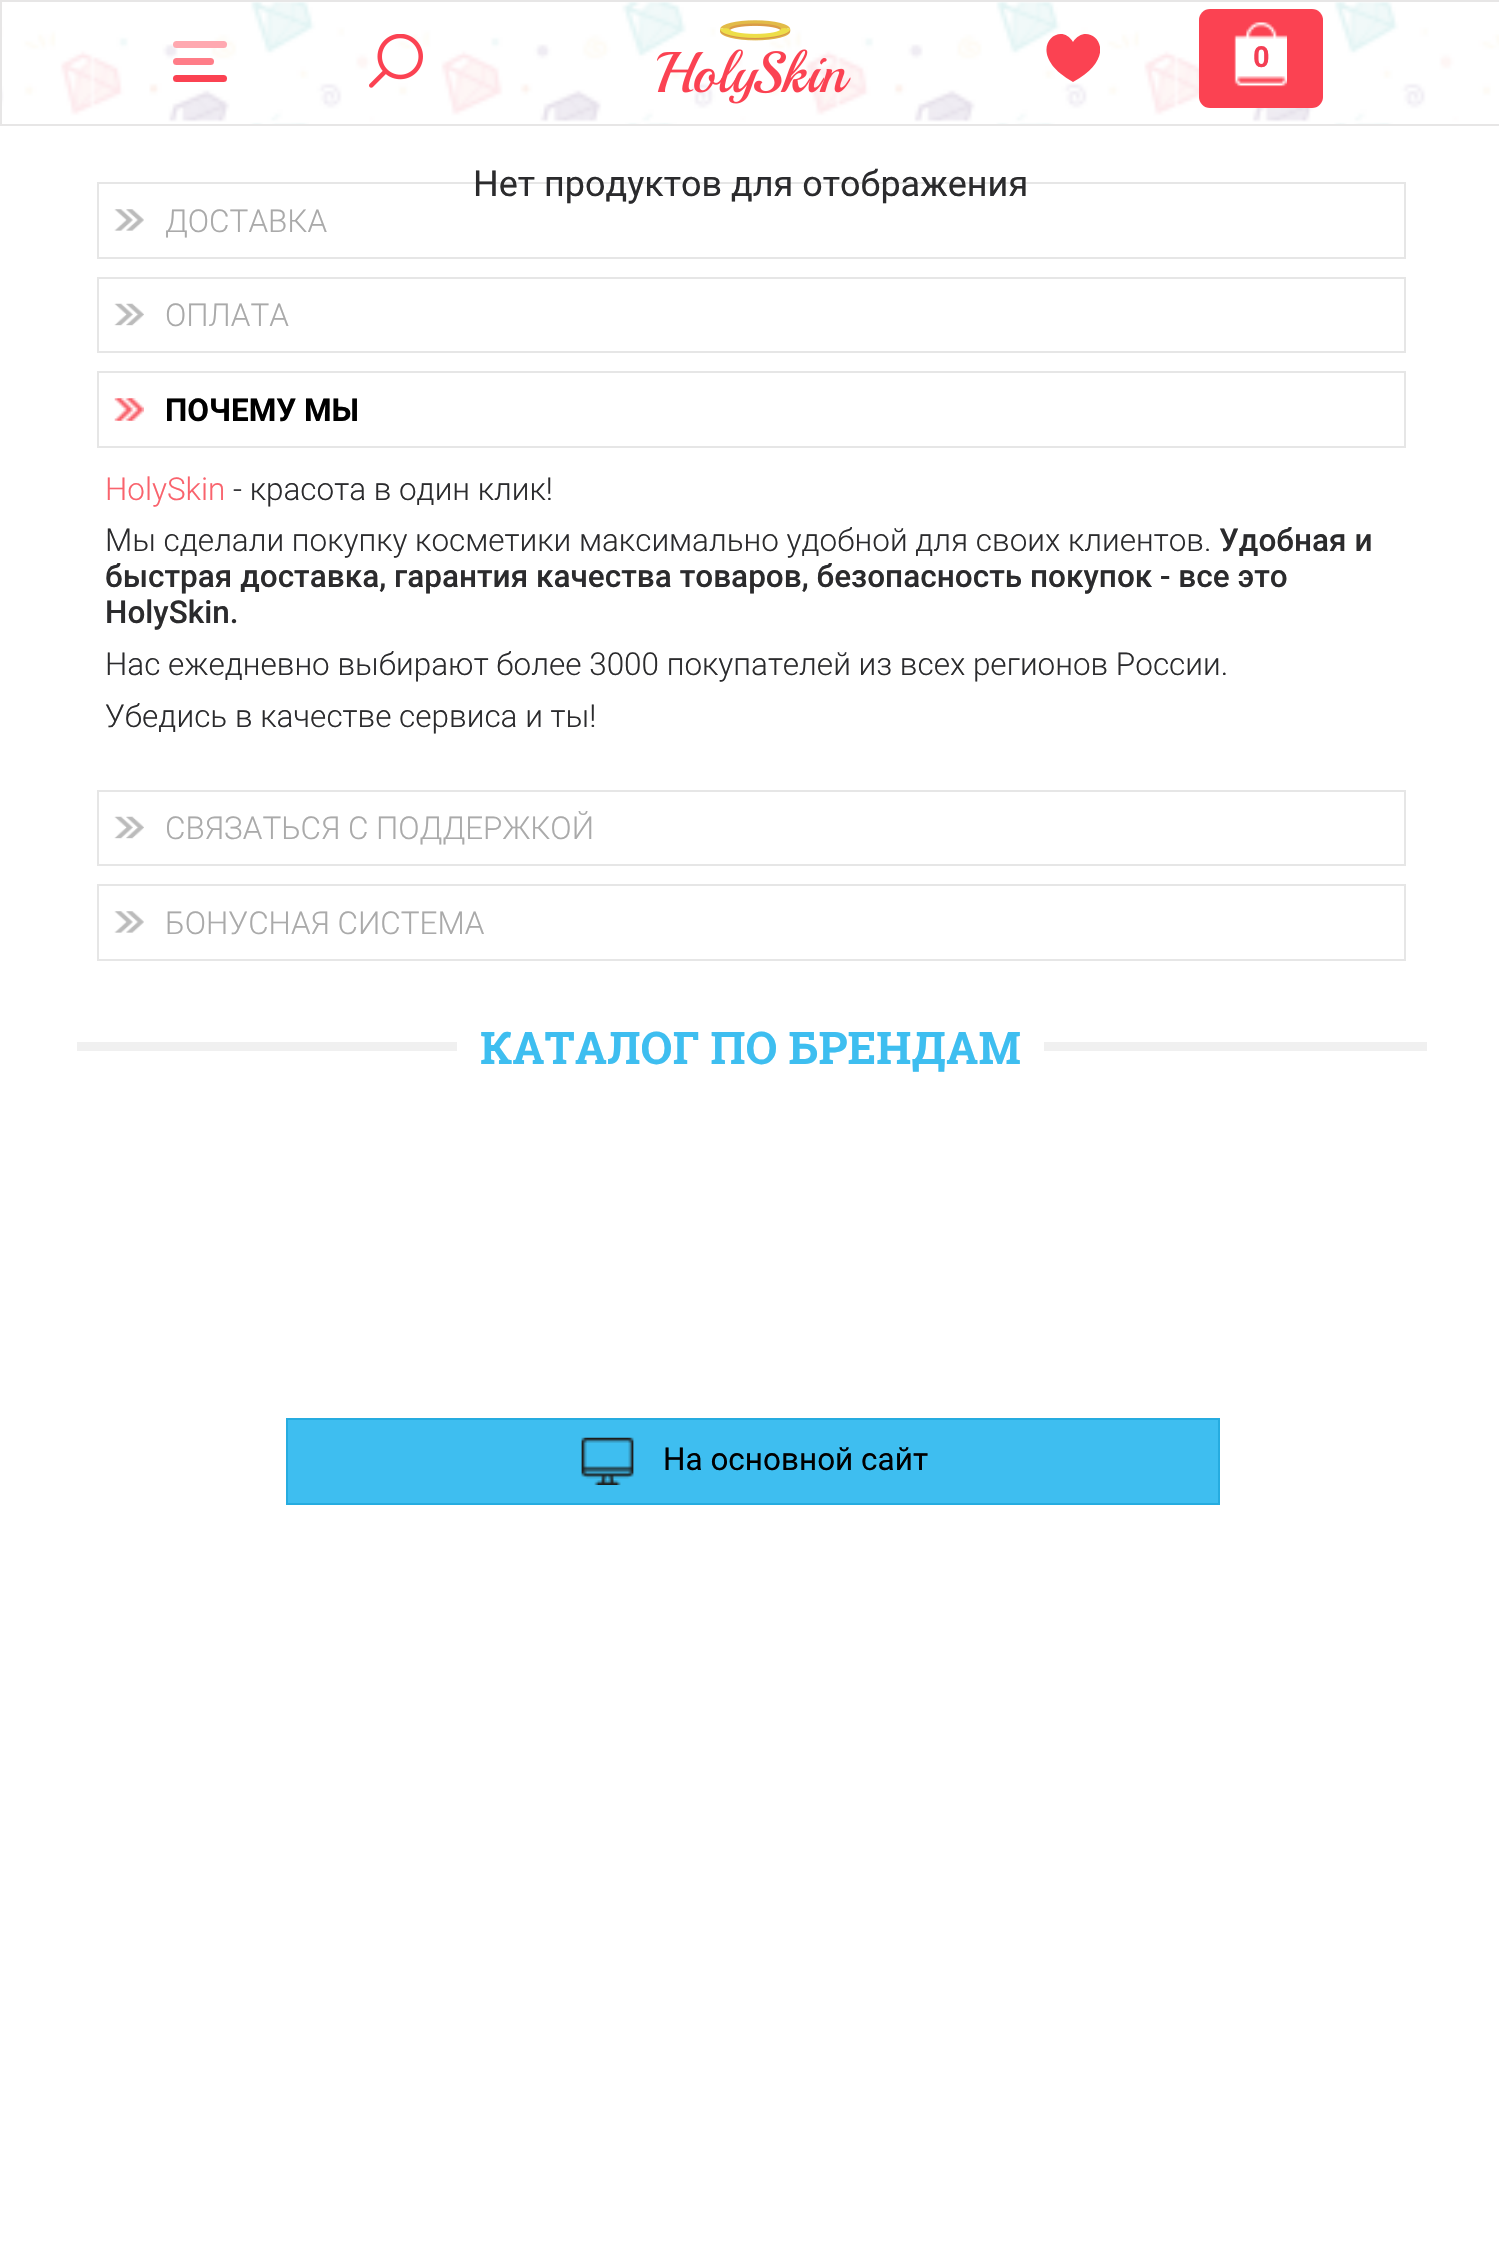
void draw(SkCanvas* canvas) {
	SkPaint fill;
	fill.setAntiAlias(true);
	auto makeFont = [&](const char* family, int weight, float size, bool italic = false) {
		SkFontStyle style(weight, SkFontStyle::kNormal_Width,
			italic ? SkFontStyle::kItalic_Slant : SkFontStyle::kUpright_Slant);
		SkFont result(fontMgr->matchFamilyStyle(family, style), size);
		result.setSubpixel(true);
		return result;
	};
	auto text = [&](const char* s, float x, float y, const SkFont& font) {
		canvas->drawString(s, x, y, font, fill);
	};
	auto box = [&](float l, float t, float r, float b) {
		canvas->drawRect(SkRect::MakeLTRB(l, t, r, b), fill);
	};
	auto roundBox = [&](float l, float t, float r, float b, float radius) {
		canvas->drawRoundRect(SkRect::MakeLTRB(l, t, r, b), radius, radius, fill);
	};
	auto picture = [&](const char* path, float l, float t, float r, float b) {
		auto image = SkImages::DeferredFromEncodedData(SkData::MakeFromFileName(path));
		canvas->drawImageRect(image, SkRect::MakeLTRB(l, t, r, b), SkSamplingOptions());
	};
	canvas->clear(0xFFFFFFFF);
	picture("image0.png", 2, 2, 1499, 124);
	fill.setStyle(SkPaint::kStroke_Style);
	fill.setStrokeWidth(2);
	fill.setColor(0xFFE7E6E6);
	canvas->drawRect(SkRect::MakeLTRB(1, 1, 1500, 125), fill);
	fill.setStyle(SkPaint::kFill_Style);
	fill.setColor(0xFFFFA8B0);
	roundBox(173, 41, 227, 48, 3.5f);
	fill.setColor(0xFFFF7D88);
	roundBox(173, 58, 214, 65, 3.5f);
	fill.setColor(0xFFFB4252);
	roundBox(173, 75, 227, 82, 3.5f);
	picture("image1.png", 369, 34, 423, 88);
	picture("image2.png", 657, 20, 851, 104);
	canvas->save();
	canvas->clipRect(SkRect::MakeLTRB(1046, 34, 1100, 83));
	canvas->drawPath(SkPathBuilder().moveTo(1073, 82).cubicTo(1021, 53, 1059, 18, 1073, 42).cubicTo(1088, 18, 1126, 53, 1073, 82).close().detach(), fill);
	canvas->restore();
	roundBox(1199, 9, 1323, 108, 11);
	picture("image3.png", 1234, 22, 1287, 87);
	fill.setStyle(SkPaint::kStroke_Style);
	fill.setColor(0xFFE6E6E6);
	canvas->drawRect(SkRect::MakeLTRB(98, 183, 1405, 258), fill);
	picture("image4.png", 114, 209, 144, 231);
	canvas->drawRect(SkRect::MakeLTRB(98, 278, 1405, 352), fill);
	picture("image5.png", 114, 303, 144, 326);
	canvas->drawRect(SkRect::MakeLTRB(98, 372, 1405, 447), fill);
	picture("image6.png", 114, 398, 144, 421);
	canvas->drawRect(SkRect::MakeLTRB(98, 791, 1405, 865), fill);
	picture("image5.png", 114, 816, 144, 839);
	canvas->drawRect(SkRect::MakeLTRB(98, 885, 1405, 960), fill);
	picture("image4.png", 114, 911, 144, 933);
	fill.setStyle(SkPaint::kFill_Style);
	fill.setColor(0xFFF0F0F0);
	box(77, 1042, 457, 1051);
	box(1044, 1042, 1427, 1051);
	fill.setColor(0xFF3EBEF0);
	canvas->drawRect(SkRect::MakeLTRB(287, 1419, 1219, 1504), fill);
	fill.setStyle(SkPaint::kStroke_Style);
	fill.setColor(0xFF26ACE0);
	canvas->drawRect(SkRect::MakeLTRB(287, 1419, 1219, 1504), fill);
	picture("image7.png", 581, 1437, 634, 1485);
	auto font1 = makeFont("Roboto", 700, 29);
	fill.setStyle(SkPaint::kFill_Style);
	fill.setColor(0xFFF43E54);
	text("0", 1253, 67, font1);
	auto font2 = makeFont("Roboto", 400, 36);
	fill.setColor(0xFF2B2B2D);
	text("Нет продуктов для отображения", 473, 196, font2);
	auto font3 = makeFont("Roboto", 300, 31.5f);
	fill.setColor(0xFFAAAAAA);
	text("ДОСТАВКА", 165, 232, font3);
	text("ОПЛАТА", 165, 326, font3);
	auto font4 = makeFont("Roboto", 700, 31.5f);
	fill.setColor(0xFF000000);
	text("ПОЧЕМУ МЫ", 165, 421, font4);
	fill.setColor(0xFFF9636D);
	text("HolySkin", 105, 500, font3);
	fill.setColor(0xFF2B2B2D);
	text("- красота в один клик!", 233, 500, font3);
	text("Мы сделали покупку косметики максимально удобной для своих клиентов.", 105, 551, font3);
	auto font5 = makeFont("Roboto", 500, 31.5f);
	text("Удобная и", 1219, 551, font5);
	text("быстрая доставка, гарантия качества товаров, безопасность покупок - все это", 105, 587, font5);
	text("HolySkin.", 105, 623, font5);
	text("Нас ежедневно выбирают более 3000 покупателей из всех регионов России.", 105, 675, font3);
	text("Убедись в качестве сервиса и ты!", 105, 727, font3);
	fill.setColor(0xFFAAAAAA);
	text("СВЯЗАТЬСЯ С ПОДДЕРЖКОЙ", 165, 839, font3);
	text("БОНУСНАЯ СИСТЕМА", 165, 934, font3);
	auto font6 = makeFont("Roboto Slab", 700, 45);
	fill.setColor(0xFF3EBEF0);
	text("КАТАЛОГ ПО БРЕНДАМ", 480, 1064, font6);
	auto font7 = makeFont("Roboto", 400, 31.5f);
	fill.setColor(0xFF000000);
	text("На основной сайт", 663, 1470, font7);
}
